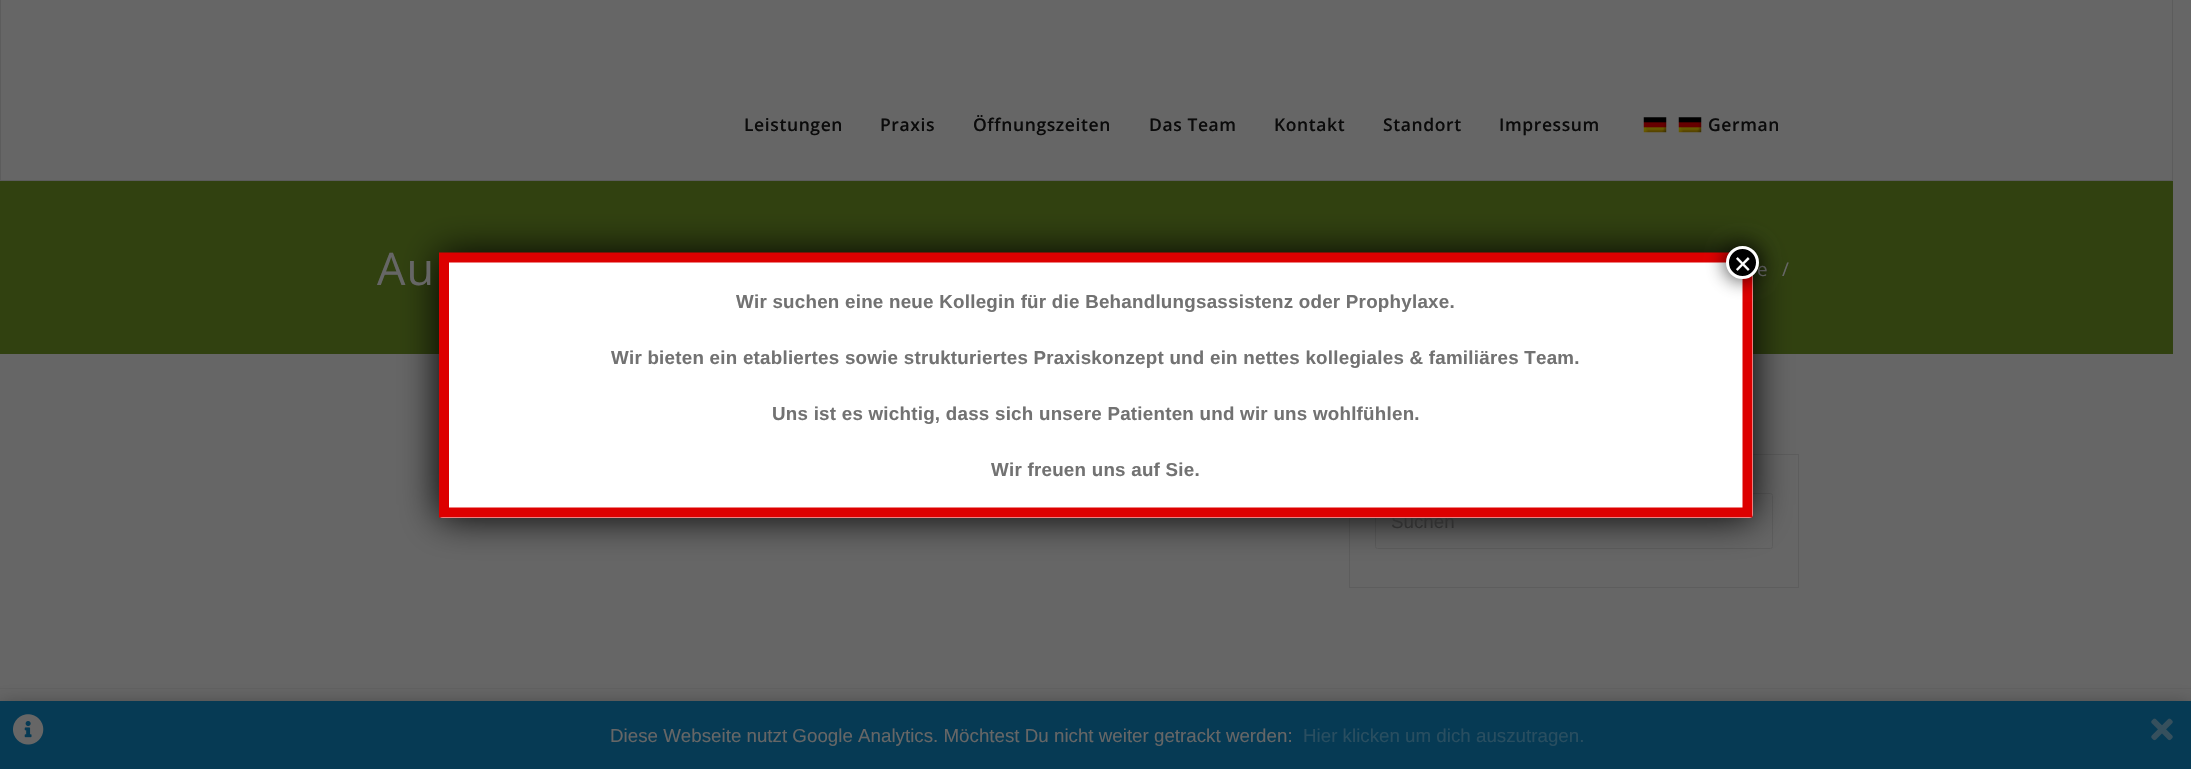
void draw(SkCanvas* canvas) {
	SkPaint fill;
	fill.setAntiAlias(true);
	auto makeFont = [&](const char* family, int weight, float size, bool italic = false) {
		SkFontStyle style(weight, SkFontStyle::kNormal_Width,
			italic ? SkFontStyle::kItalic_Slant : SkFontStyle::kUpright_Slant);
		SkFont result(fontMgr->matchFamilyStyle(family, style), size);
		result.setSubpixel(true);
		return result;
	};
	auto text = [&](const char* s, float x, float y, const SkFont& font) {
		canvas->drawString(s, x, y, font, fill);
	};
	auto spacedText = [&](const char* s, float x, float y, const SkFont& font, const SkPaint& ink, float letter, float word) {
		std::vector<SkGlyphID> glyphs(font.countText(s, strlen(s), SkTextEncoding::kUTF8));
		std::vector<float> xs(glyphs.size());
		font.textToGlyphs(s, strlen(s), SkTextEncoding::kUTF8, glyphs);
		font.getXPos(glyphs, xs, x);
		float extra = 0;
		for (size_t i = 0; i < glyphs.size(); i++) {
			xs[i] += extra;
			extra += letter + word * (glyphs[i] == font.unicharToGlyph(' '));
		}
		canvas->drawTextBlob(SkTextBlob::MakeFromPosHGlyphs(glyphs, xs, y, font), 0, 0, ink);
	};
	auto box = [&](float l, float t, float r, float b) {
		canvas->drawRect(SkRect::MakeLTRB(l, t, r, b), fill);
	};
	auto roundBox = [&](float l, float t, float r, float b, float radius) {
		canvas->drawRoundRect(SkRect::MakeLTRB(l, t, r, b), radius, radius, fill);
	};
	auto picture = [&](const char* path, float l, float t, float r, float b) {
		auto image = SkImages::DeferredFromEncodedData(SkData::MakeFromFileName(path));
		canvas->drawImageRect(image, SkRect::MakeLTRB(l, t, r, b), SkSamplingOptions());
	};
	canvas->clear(0xFF666666);
	fill.setStyle(SkPaint::kStroke_Style);
	fill.setStrokeWidth(1);
	fill.setColor(0xFF5C5C5C);
	canvas->drawRect(SkRect::MakeLTRB(0.5f, -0.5f, 2172.5f, 180.5f), fill);
	picture("image0.png", 1643, 117, 1667, 133);
	picture("image0.png", 1678, 117, 1702, 133);
	fill.setStyle(SkPaint::kFill_Style);
	fill.setColor(0xFF314110);
	box(0, 181, 2173, 354);
	fill.setStyle(SkPaint::kStroke_Style);
	fill.setColor(0xFF5D5D5D);
	canvas->drawRect(SkRect::MakeLTRB(1349.5f, 454.5f, 1798.5f, 587.5f), fill);
	canvas->drawRoundRect(SkRect::MakeLTRB(1375.5f, 493.5f, 1772.5f, 548.5f), 2, 2, fill);
	fill.setStyle(SkPaint::kFill_Style);
	fill.setColor(0xFF020202);
	fill.setMaskFilter(SkMaskFilter::MakeBlur(kNormal_SkBlurStyle, 19));
	canvas->drawRoundRect(SkRect::MakeLTRB(439, 253, 1753, 518), 4, 4, fill);
	fill.setMaskFilter(nullptr);
	fill.setColor(0xFF626262);
	box(0, 688, 2191, 689);
	fill.setColor(0x66000000);
	fill.setMaskFilter(SkMaskFilter::MakeBlur(kNormal_SkBlurStyle, 9.5f));
	canvas->drawRect(SkRect::MakeLTRB(0, 706, 2191, 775), fill);
	fill.setMaskFilter(nullptr);
	fill.setColor(0xFF063A54);
	box(0, 701, 2191, 769);
	picture("image1.png", 13, 714, 44, 745);
	picture("image2.png", 2151, 718, 2173, 741);
	auto font1 = makeFont("Open Sans", 600, 17.5f);
	fill.setColor(0xFF0B0B0B);
	spacedText("Leistungen", 744, 131, font1, fill, 0.6f, 0);
	spacedText("Praxis", 880, 131, font1, fill, 0.6f, 0);
	spacedText("Öffnungszeiten", 973, 131, font1, fill, 0.6f, 0);
	spacedText("Das Team", 1149, 131, font1, fill, 0.6f, 0);
	spacedText("Kontakt", 1274, 131, font1, fill, 0.6f, 0);
	spacedText("Standort", 1383, 131, font1, fill, 0.6f, 0);
	spacedText("Impressum", 1499, 131, font1, fill, 0.6f, 0);
	spacedText("German", 1708, 131, font1, fill, 0.6f, 0);
	auto font2 = makeFont("Open Sans", 400, 45);
	fill.setColor(0xFF666666);
	spacedText("Au", 377, 285, font2, fill, 1, 0);
	auto font3 = makeFont("Open Sans", 400, 18.75f);
	text("e", 1757, 276, font3);
	text("/", 1782, 276, font3);
	auto font4 = makeFont("Liberation Sans", 400, 18.75f);
	fill.setColor(0xFF2F2F2F);
	text("Suchen", 1391, 528, font4);
	fill.setColor(0xFFFFFFFF);
	roundBox(439, 253, 1753, 518, 4);
	fill.setStyle(SkPaint::kStroke_Style);
	fill.setStrokeWidth(10);
	fill.setColor(0xFFDD0000);
	canvas->drawPath(SkPathBuilder().moveTo(444, 257.5f).lineTo(1747.5f, 257.5f).lineTo(1747.5f, 512.5f).lineTo(444, 512.5f).close().detach(), fill);
	fill.setStyle(SkPaint::kFill_Style);
	fill.setColor(0xBF020202);
	fill.setMaskFilter(SkMaskFilter::MakeBlur(kNormal_SkBlurStyle, 9.5f));
	canvas->drawRoundRect(SkRect::MakeLTRB(1725, 245, 1760, 280), 17.5f, 17.5f, fill);
	fill.setMaskFilter(nullptr);
	fill.setColor(0xFF000000);
	canvas->drawCircle(1742.5f, 262.5f, 15, fill);
	fill.setStyle(SkPaint::kStroke_Style);
	fill.setStrokeWidth(3);
	fill.setColor(0xFFFFFFFF);
	canvas->drawCircle(1742.5f, 262.5f, 15, fill);
	auto font5 = makeFont("Liberation Sans", 400, 30);
	fill.setStyle(SkPaint::kFill_Style);
	text("×", 1734, 274, font5);
	auto font6 = makeFont("Liberation Sans", 700, 18.75f);
	fill.setColor(0xFF727272);
	spacedText("Wir suchen eine neue Kollegin für die Behandlungsassistenz oder Prophylaxe.", 736, 308, font6, fill, 0.25f, 0);
	spacedText("Wir bieten ein etabliertes sowie strukturiertes Praxiskonzept und ein nettes kollegiales & familiäres Team.", 611, 364, font6, fill, 0.25f, 0);
	spacedText("Uns ist es wichtig, dass sich unsere Patienten und wir uns wohlfühlen.", 772, 420, font6, fill, 0.25f, 0);
	spacedText("Wir freuen uns auf Sie.", 991, 476, font6, fill, 0.25f, 0);
	fill.setColor(0xFF666666);
	text("Diese Webseite nutzt Google Analytics. Möchtest Du nicht weiter getrackt werden:", 610, 742, font4);
	fill.setColor(0xFF294E60);
	text("Hier klicken um dich auszutragen.", 1303, 742, font4);
}
